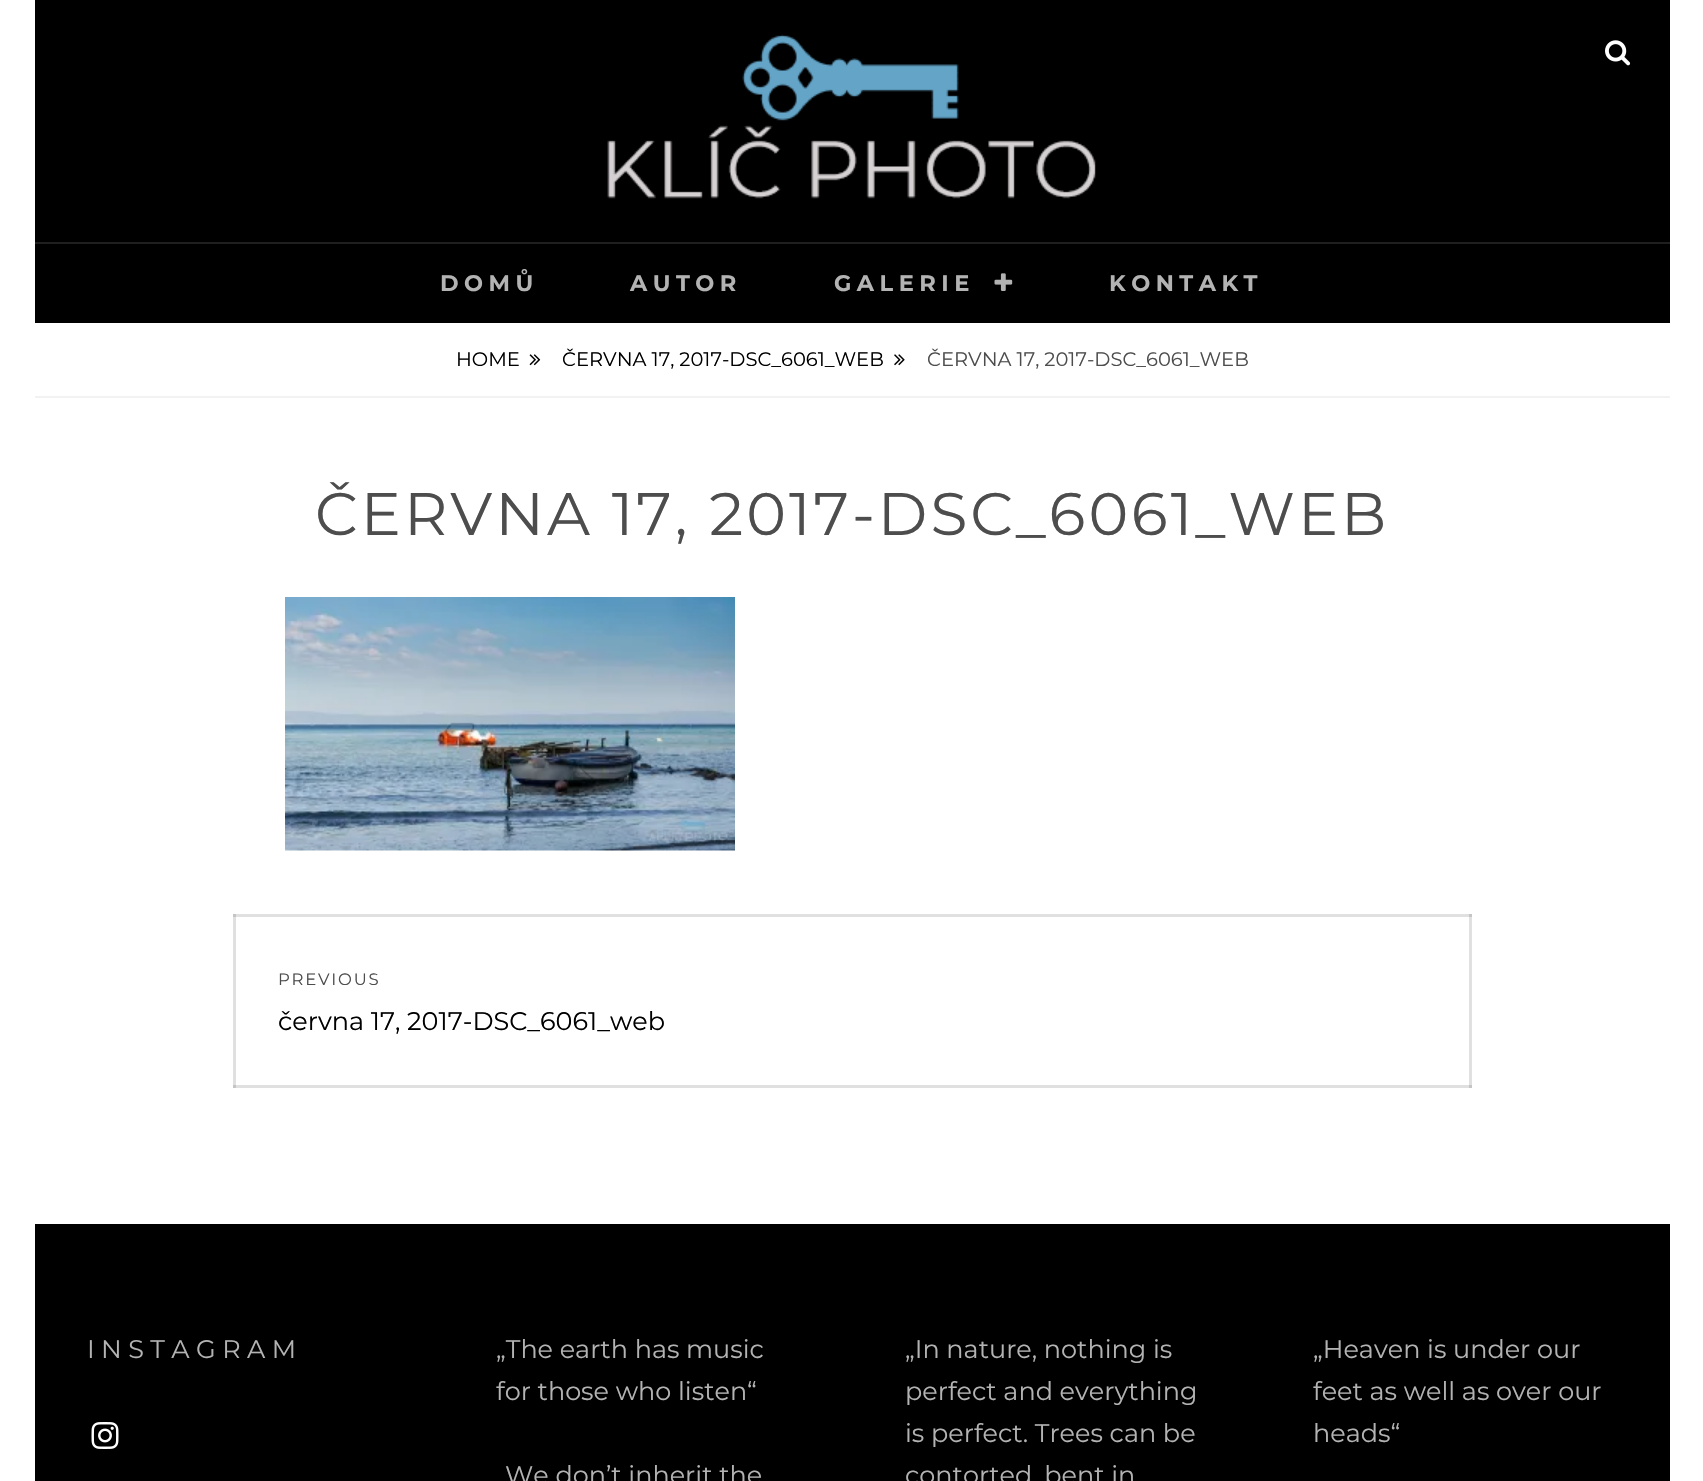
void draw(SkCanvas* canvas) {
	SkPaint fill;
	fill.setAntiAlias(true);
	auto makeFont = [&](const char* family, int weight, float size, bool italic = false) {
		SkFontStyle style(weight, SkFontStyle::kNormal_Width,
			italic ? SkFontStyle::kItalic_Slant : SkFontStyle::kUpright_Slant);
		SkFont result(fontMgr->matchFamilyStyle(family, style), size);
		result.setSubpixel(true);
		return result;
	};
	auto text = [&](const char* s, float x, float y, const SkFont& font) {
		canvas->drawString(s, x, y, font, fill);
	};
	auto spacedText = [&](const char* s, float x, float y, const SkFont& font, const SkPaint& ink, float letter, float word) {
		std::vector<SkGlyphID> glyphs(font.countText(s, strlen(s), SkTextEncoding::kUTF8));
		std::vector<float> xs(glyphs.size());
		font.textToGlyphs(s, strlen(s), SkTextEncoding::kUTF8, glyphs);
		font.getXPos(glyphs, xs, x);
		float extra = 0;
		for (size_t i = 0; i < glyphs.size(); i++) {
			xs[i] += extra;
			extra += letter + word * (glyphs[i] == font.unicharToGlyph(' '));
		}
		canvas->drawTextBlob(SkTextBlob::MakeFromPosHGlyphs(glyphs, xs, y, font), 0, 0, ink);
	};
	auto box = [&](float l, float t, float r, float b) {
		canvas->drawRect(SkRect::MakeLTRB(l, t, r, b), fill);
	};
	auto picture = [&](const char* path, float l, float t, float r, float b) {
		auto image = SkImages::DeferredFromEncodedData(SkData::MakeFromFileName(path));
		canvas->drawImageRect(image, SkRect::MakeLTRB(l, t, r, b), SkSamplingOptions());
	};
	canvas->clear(0xFFFFFFFF);
	fill.setColor(0xFFE0E0E0);
	box(233, 914, 236, 1088);
	box(233, 1085, 1472, 1088);
	fill.setColor(0xFFC5C5C5);
	box(233, 1085, 236, 1088);
	fill.setColor(0xFFE0E0E0);
	box(1469, 914, 1472, 1088);
	fill.setColor(0xFFC5C5C5);
	box(1469, 1085, 1472, 1088);
	fill.setColor(0xFF000000);
	box(35, 0, 1670, 323);
	picture("image0.png", 607, 34, 1096, 199);
	picture("image1.png", 1605, 40, 1631, 66);
	fill.setColor(0xFF1F1F1F);
	box(35, 242, 1670, 244);
	picture("image2.png", 994, 273, 1013, 291);
	fill.setColor(0xFFF2F2F2);
	box(35, 396, 1670, 398);
	picture("image3.png", 529, 354, 541, 366);
	picture("image4.png", 894, 354, 905, 366);
	picture("image5.png", 285, 597, 735, 851);
	fill.setColor(0xFFE0E0E0);
	box(233, 914, 1472, 917);
	fill.setColor(0xFFC5C5C5);
	box(233, 914, 236, 917);
	box(1469, 914, 1472, 917);
	fill.setColor(0xFF000000);
	box(35, 1224, 1670, 1481);
	picture("image6.png", 91, 1422, 119, 1449);
	auto font1 = makeFont("Montserrat", 700, 22.5f);
	fill.setColor(0xFFB3B3B3);
	spacedText("DOMŮ", 440, 291, font1, fill, 5.5f, 0);
	spacedText("AUTOR", 630, 291, font1, fill, 5.5f, 0);
	spacedText("GALERIE", 834, 291, font1, fill, 5.5f, 0);
	spacedText("KONTAKT", 1109, 291, font1, fill, 5.5f, 0);
	auto font2 = makeFont("Montserrat", 400, 19.5f);
	fill.setColor(0xFF000000);
	text("HOME", 456, 366, font2);
	text("ČERVNA 17, 2017-DSC_6061_WEB", 562, 366, font2);
	fill.setColor(0xFF4D4D4D);
	text("ČERVNA 17, 2017-DSC_6061_WEB", 927, 366, font2);
	auto font3 = makeFont("Montserrat", 400, 60);
	spacedText("ČERVNA 17, 2017-DSC_6061_WEB", 315, 535, font3, fill, 3, 0);
	auto font4 = makeFont("Montserrat", 400, 16.5f);
	spacedText("PREVIOUS", 278, 985, font4, fill, 1.75f, 0);
	auto font5 = makeFont("Montserrat", 400, 25.5f);
	fill.setColor(0xFF000000);
	text("června 17, 2017-DSC_6061_web", 278, 1030, font5);
	fill.setColor(0xFFB3B3B3);
	spacedText("INSTAGRAM", 87, 1358, font5, fill, 6.4f, 0);
	text("„The earth has music", 496, 1358, font5);
	text("for those who listen“", 496, 1400, font5);
	text("We don’t inherit the", 505, 1484, font5);
	text("„In nature, nothing is", 905, 1358, font5);
	text("perfect and everything", 905, 1400, font5);
	text("is perfect. Trees can be", 905, 1442, font5);
	text("contorted, bent in", 905, 1484, font5);
	text("„Heaven is under our", 1313, 1358, font5);
	text("feet as well as over our", 1313, 1400, font5);
	text("heads“", 1313, 1442, font5);
}
